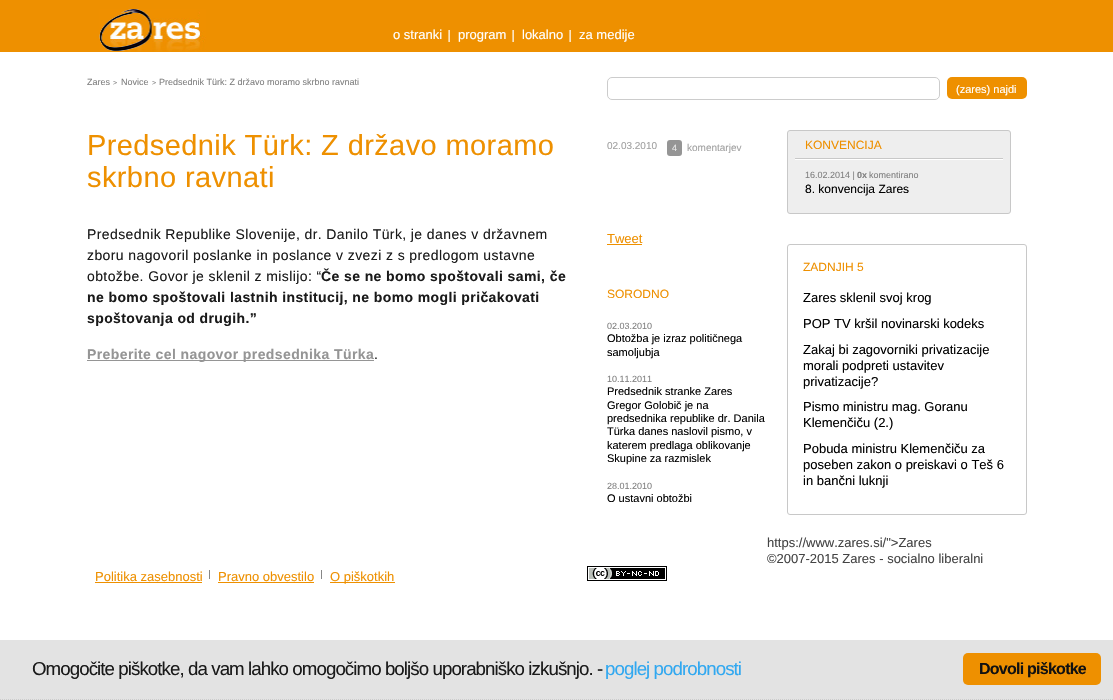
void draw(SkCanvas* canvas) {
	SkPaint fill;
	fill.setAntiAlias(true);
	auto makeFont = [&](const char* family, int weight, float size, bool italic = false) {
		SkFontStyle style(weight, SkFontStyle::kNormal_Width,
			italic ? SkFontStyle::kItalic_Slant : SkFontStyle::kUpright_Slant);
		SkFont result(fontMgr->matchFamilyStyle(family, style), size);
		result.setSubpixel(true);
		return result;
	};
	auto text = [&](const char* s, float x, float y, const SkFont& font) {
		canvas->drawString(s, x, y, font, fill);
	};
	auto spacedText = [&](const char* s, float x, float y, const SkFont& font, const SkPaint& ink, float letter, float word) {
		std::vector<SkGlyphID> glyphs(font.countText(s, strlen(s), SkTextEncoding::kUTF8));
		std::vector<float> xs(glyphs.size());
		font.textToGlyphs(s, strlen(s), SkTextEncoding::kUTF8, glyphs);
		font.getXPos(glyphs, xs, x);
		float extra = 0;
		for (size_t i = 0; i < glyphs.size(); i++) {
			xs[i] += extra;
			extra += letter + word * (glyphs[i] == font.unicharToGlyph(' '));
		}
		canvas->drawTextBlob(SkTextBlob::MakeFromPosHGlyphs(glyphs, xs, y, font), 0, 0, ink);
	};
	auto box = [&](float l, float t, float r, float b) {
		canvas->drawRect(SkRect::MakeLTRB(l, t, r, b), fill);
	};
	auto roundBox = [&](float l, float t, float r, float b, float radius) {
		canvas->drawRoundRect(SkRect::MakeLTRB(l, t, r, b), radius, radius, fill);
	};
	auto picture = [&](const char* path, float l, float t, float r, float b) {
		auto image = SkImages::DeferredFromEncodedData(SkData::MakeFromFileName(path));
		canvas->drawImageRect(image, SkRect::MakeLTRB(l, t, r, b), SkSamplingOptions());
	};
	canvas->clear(0xFFFFFFFF);
	fill.setColor(0xFFEE9000);
	box(0, 0, 1113, 52);
	picture("image0.png", 99, 9, 206, 52);
	picture("image1.png", 448, 30, 450, 42);
	picture("image1.png", 512, 30, 514, 42);
	picture("image1.png", 569, 30, 571, 42);
	fill.setStyle(SkPaint::kStroke_Style);
	fill.setStrokeWidth(1);
	fill.setColor(0xFFCCCCCC);
	canvas->drawRoundRect(SkRect::MakeLTRB(607.5f, 77.5f, 939.5f, 99.5f), 4.5f, 4.5f, fill);
	fill.setStyle(SkPaint::kFill_Style);
	fill.setColor(0xFFEE9000);
	roundBox(947, 77, 1027, 99, 5);
	fill.setColor(0xFF959595);
	box(87, 360, 374, 361);
	roundBox(667, 140, 682, 156, 3);
	fill.setColor(0xFFEE9000);
	box(607, 244, 642, 245);
	fill.setColor(0xFFEEEEEE);
	canvas->drawRoundRect(SkRect::MakeLTRB(787.5f, 130.5f, 1010.5f, 213.5f), 2.5f, 2.5f, fill);
	fill.setStyle(SkPaint::kStroke_Style);
	fill.setColor(0xFFC8C8C8);
	canvas->drawRoundRect(SkRect::MakeLTRB(787.5f, 130.5f, 1010.5f, 213.5f), 2.5f, 2.5f, fill);
	fill.setStyle(SkPaint::kFill_Style);
	box(795, 158, 1003, 159);
	fill.setColor(0xFFFFFFFF);
	box(795, 159, 1003, 160);
	fill.setStyle(SkPaint::kStroke_Style);
	fill.setColor(0xFFC8C8C8);
	canvas->drawRoundRect(SkRect::MakeLTRB(787.5f, 244.5f, 1026.5f, 514.5f), 2.5f, 2.5f, fill);
	fill.setStyle(SkPaint::kFill_Style);
	fill.setColor(0xFF878787);
	box(209, 570, 210, 579);
	fill.setColor(0xFFEE9000);
	box(95, 582, 202, 583);
	fill.setColor(0xFF878787);
	box(321, 570, 322, 579);
	fill.setColor(0xFFEE9000);
	box(218, 582, 314, 583);
	box(330, 582, 395, 583);
	picture("image2.png", 587, 566, 667, 581);
	fill.setColor(0xFFE3E3E3);
	box(0, 640, 1113, 700);
	fill.setStyle(SkPaint::kStroke_Style);
	fill.setColor(0xFFCCCCCC);
	fill.setPathEffect(SkDashPathEffect::Make({{1, 1}}, 0));
	canvas->drawPath(SkPathBuilder().moveTo(0, 699.5f).lineTo(1113, 699.5f).detach(), fill);
	fill.setPathEffect(nullptr);
	fill.setStyle(SkPaint::kFill_Style);
	fill.setColor(0xFFEE9000);
	roundBox(963, 653, 1101, 685, 5);
	auto font1 = makeFont("Liberation Sans", 400, 13);
	fill.setColor(0xFFFFFFFF);
	text("o stranki", 393, 39, font1);
	text("program", 458, 39, font1);
	text("lokalno", 522, 39, font1);
	text("za medije", 579, 39, font1);
	auto font2 = makeFont("Liberation Sans", 400, 9);
	fill.setColor(0xFF808080);
	text("Zares", 87, 85, font2);
	auto font3 = makeFont("Liberation Sans", 400, 7);
	text(">", 113, 85, font3);
	text("Novice", 121, 85, font2);
	text(">", 152, 85, font3);
	text("Predsednik Türk: Z državo moramo skrbno ravnati", 159, 85, font2);
	auto font4 = makeFont("Liberation Sans", 400, 11);
	fill.setColor(0xFFFFFFFF);
	text("(zares) najdi", 956, 93, font4);
	auto font5 = makeFont("Liberation Sans", 400, 29);
	fill.setColor(0xFFEE9000);
	spacedText("Predsednik Türk: Z državo moramo", 87, 155, font5, fill, 0.4f, 0);
	spacedText("skrbno ravnati", 87, 187, font5, fill, 0.4f, 0);
	auto font6 = makeFont("Liberation Sans", 400, 14);
	fill.setColor(0xFF1A1A1A);
	spacedText("Predsednik Republike Slovenije, dr. Danilo Türk, je danes v državnem", 87, 239, font6, fill, 0.4f, 0);
	spacedText("zboru nagovoril poslanke in poslance v zvezi z s predlogom ustavne", 87, 260, font6, fill, 0.4f, 0);
	spacedText("obtožbe. Govor je sklenil z mislijo: “", 87, 281, font6, fill, 0.4f, 0);
	auto font7 = makeFont("Liberation Sans", 700, 14);
	spacedText("Če se ne bomo spoštovali sami, če", 321, 281, font7, fill, 0.4f, 0);
	spacedText("ne bomo spoštovali lastnih institucij, ne bomo mogli pričakovati", 87, 302, font7, fill, 0.4f, 0);
	spacedText("spoštovanja od drugih.”", 87, 323, font7, fill, 0.4f, 0);
	fill.setColor(0xFF959595);
	spacedText("Preberite cel nagovor predsednika Türka", 87, 359, font7, fill, 0.4f, 0);
	fill.setColor(0xFF1A1A1A);
	spacedText(".", 374, 359, font6, fill, 0.4f, 0);
	auto font8 = makeFont("Liberation Sans", 400, 10);
	fill.setColor(0xFFA2A2A2);
	text("02.03.2010", 607, 149, font8);
	fill.setColor(0xFFEAEAEA);
	text("4", 672, 151, font2);
	fill.setColor(0xFFA2A2A2);
	text("komentarjev", 687, 151, font8);
	fill.setColor(0xFFEE9000);
	text("Tweet", 607, 243, font1);
	auto font9 = makeFont("Liberation Sans", 400, 12);
	text("SORODNO", 607, 298, font9);
	fill.setColor(0xFF808080);
	text("02.03.2010", 607, 329, font2);
	fill.setColor(0xFF000000);
	text("Obtožba je izraz političnega", 607, 342, font4);
	text("samoljubja", 607, 356, font4);
	fill.setColor(0xFF808080);
	text("10.11.2011", 607, 382, font2);
	fill.setColor(0xFF000000);
	text("Predsednik stranke Zares", 607, 395, font4);
	text("Gregor Golobič je na", 607, 409, font4);
	text("predsednika republike dr. Danila", 607, 422, font4);
	text("Türka danes naslovil pismo, v", 607, 435, font4);
	text("katerem predlaga oblikovanje", 607, 449, font4);
	text("Skupine za razmislek", 607, 462, font4);
	fill.setColor(0xFF808080);
	text("28.01.2010", 607, 489, font2);
	fill.setColor(0xFF000000);
	text("O ustavni obtožbi", 607, 502, font4);
	fill.setColor(0xFFEE9000);
	text("KONVENCIJA", 805, 149, font9);
	fill.setColor(0xFF808080);
	text("16.02.2014 |", 805, 178, font2);
	auto font10 = makeFont("Liberation Sans", 700, 9);
	text("0x", 857, 178, font10);
	text("komentirano", 869, 178, font2);
	fill.setColor(0xFF000000);
	text("8. konvencija Zares", 805, 193, font9);
	fill.setColor(0xFFEE9000);
	text("ZADNJIH 5", 803, 271, font9);
	fill.setColor(0xFF000000);
	text("Zares sklenil svoj krog", 803, 302, font1);
	text("POP TV kršil novinarski kodeks", 803, 328, font1);
	text("Zakaj bi zagovorniki privatizacije", 803, 354, font1);
	text("morali podpreti ustavitev", 803, 370, font1);
	text("privatizacije?", 803, 386, font1);
	text("Pismo ministru mag. Goranu", 803, 411, font1);
	text("Klemenčiču (2.)", 803, 427, font1);
	text("Pobuda ministru Klemenčiču za", 803, 453, font1);
	text("poseben zakon o preiskavi o Teš 6", 803, 469, font1);
	text("in bančni luknji", 803, 485, font1);
	fill.setColor(0xFF444444);
	text("https://www.zares.si/\">Zares", 767, 547, font1);
	text("©2007-2015 Zares - socialno liberalni", 767, 563, font1);
	fill.setColor(0xFFEE9000);
	text("Politika zasebnosti", 95, 581, font1);
	text("Pravno obvestilo", 218, 581, font1);
	text("O piškotkih", 330, 581, font1);
	auto font11 = makeFont("Liberation Sans", 400, 18.7f);
	fill.setColor(0xFF1A1A1A);
	spacedText("Omogočite piškotke, da vam lahko omogočimo boljšo uporabniško izkušnjo. -", 32, 675, font11, fill, -0.93f, 0);
	fill.setColor(0xFF31A8F0);
	spacedText("poglej podrobnosti", 605, 675, font11, fill, -0.93f, 0);
	auto font12 = makeFont("Liberation Sans", 700, 16);
	fill.setColor(0xFF111111);
	spacedText("Dovoli piškotke", 979, 674, font12, fill, -0.75f, 0);
}
